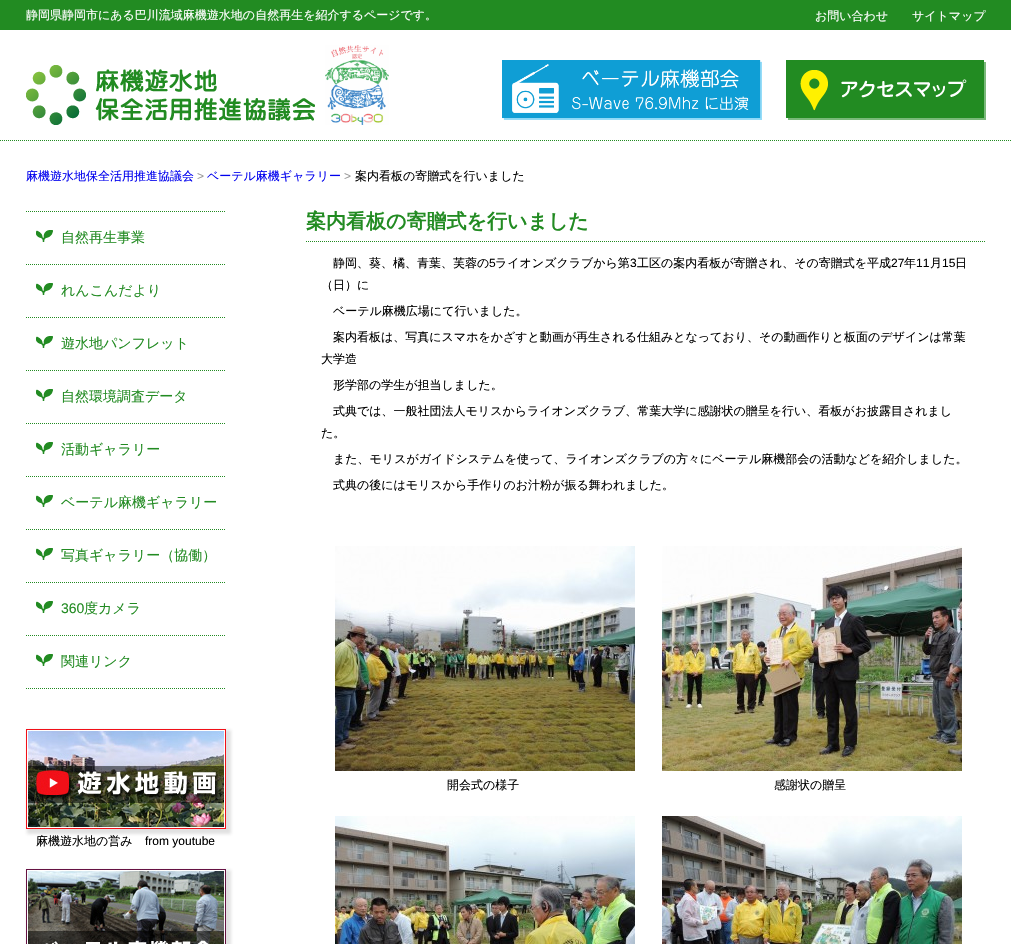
void draw(SkCanvas* canvas) {
	SkPaint fill;
	fill.setAntiAlias(true);
	auto makeFont = [&](const char* family, int weight, float size, bool italic = false) {
		SkFontStyle style(weight, SkFontStyle::kNormal_Width,
			italic ? SkFontStyle::kItalic_Slant : SkFontStyle::kUpright_Slant);
		SkFont result(fontMgr->matchFamilyStyle(family, style), size);
		result.setSubpixel(true);
		return result;
	};
	auto text = [&](const char* s, float x, float y, const SkFont& font) {
		canvas->drawString(s, x, y, font, fill);
	};
	auto box = [&](float l, float t, float r, float b) {
		canvas->drawRect(SkRect::MakeLTRB(l, t, r, b), fill);
	};
	auto picture = [&](const char* path, float l, float t, float r, float b) {
		auto image = SkImages::DeferredFromEncodedData(SkData::MakeFromFileName(path));
		canvas->drawImageRect(image, SkRect::MakeLTRB(l, t, r, b), SkSamplingOptions());
	};
	canvas->clear(0xFFFFFFFF);
	fill.setStyle(SkPaint::kStroke_Style);
	fill.setStrokeWidth(1);
	fill.setColor(0xFF228B22);
	fill.setPathEffect(SkDashPathEffect::Make({{1, 1}}, 0));
	canvas->drawPath(SkPathBuilder().moveTo(0, 140.5f).lineTo(1011, 140.5f).detach(), fill);
	fill.setPathEffect(nullptr);
	fill.setStyle(SkPaint::kFill_Style);
	box(0, 0, 1011, 30);
	picture("image0.png", 26, 65, 315, 125);
	picture("image1.png", 325, 45, 389, 125);
	picture("image2.png", 502, 60, 762, 120);
	picture("image3.png", 786, 60, 986, 120);
	fill.setStyle(SkPaint::kStroke_Style);
	fill.setPathEffect(SkDashPathEffect::Make({{1, 1}}, 0));
	canvas->drawPath(SkPathBuilder().moveTo(26, 211.5f).lineTo(226, 211.5f).detach(), fill);
	fill.setPathEffect(nullptr);
	picture("image4.png", 36, 230, 53, 242);
	fill.setPathEffect(SkDashPathEffect::Make({{1, 1}}, 0));
	canvas->drawPath(SkPathBuilder().moveTo(26, 264.5f).lineTo(226, 264.5f).detach(), fill);
	fill.setPathEffect(nullptr);
	picture("image4.png", 36, 283, 53, 295);
	fill.setPathEffect(SkDashPathEffect::Make({{1, 1}}, 0));
	canvas->drawPath(SkPathBuilder().moveTo(26, 317.5f).lineTo(226, 317.5f).detach(), fill);
	fill.setPathEffect(nullptr);
	picture("image4.png", 36, 336, 53, 348);
	fill.setPathEffect(SkDashPathEffect::Make({{1, 1}}, 0));
	canvas->drawPath(SkPathBuilder().moveTo(26, 370.5f).lineTo(226, 370.5f).detach(), fill);
	fill.setPathEffect(nullptr);
	picture("image4.png", 36, 389, 53, 401);
	fill.setPathEffect(SkDashPathEffect::Make({{1, 1}}, 0));
	canvas->drawPath(SkPathBuilder().moveTo(26, 423.5f).lineTo(226, 423.5f).detach(), fill);
	fill.setPathEffect(nullptr);
	picture("image4.png", 36, 442, 53, 454);
	fill.setPathEffect(SkDashPathEffect::Make({{1, 1}}, 0));
	canvas->drawPath(SkPathBuilder().moveTo(26, 476.5f).lineTo(226, 476.5f).detach(), fill);
	fill.setPathEffect(nullptr);
	picture("image4.png", 36, 495, 53, 507);
	fill.setPathEffect(SkDashPathEffect::Make({{1, 1}}, 0));
	canvas->drawPath(SkPathBuilder().moveTo(26, 529.5f).lineTo(226, 529.5f).detach(), fill);
	fill.setPathEffect(nullptr);
	picture("image4.png", 36, 548, 53, 560);
	fill.setPathEffect(SkDashPathEffect::Make({{1, 1}}, 0));
	canvas->drawPath(SkPathBuilder().moveTo(26, 582.5f).lineTo(226, 582.5f).detach(), fill);
	fill.setPathEffect(nullptr);
	picture("image4.png", 36, 601, 53, 613);
	fill.setPathEffect(SkDashPathEffect::Make({{1, 1}}, 0));
	canvas->drawPath(SkPathBuilder().moveTo(26, 635.5f).lineTo(226, 635.5f).detach(), fill);
	fill.setPathEffect(nullptr);
	picture("image4.png", 36, 654, 53, 666);
	fill.setPathEffect(SkDashPathEffect::Make({{1, 1}}, 0));
	canvas->drawPath(SkPathBuilder().moveTo(26, 688.5f).lineTo(226, 688.5f).detach(), fill);
	fill.setPathEffect(nullptr);
	fill.setStyle(SkPaint::kFill_Style);
	fill.setColor(0x26333333);
	fill.setMaskFilter(SkMaskFilter::MakeBlur(kNormal_SkBlurStyle, 1.5f));
	canvas->drawRect(SkRect::MakeLTRB(27, 730, 231, 834), fill);
	fill.setMaskFilter(nullptr);
	picture("image5.png", 26, 729, 226, 829);
	fill.setMaskFilter(SkMaskFilter::MakeBlur(kNormal_SkBlurStyle, 1.5f));
	canvas->drawRect(SkRect::MakeLTRB(27, 870, 231, 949), fill);
	fill.setMaskFilter(nullptr);
	picture("image6.png", 26, 869, 226, 944);
	fill.setStyle(SkPaint::kStroke_Style);
	fill.setColor(0xFF228B22);
	fill.setPathEffect(SkDashPathEffect::Make({{1, 1}}, 0));
	canvas->drawPath(SkPathBuilder().moveTo(306, 241.5f).lineTo(986, 241.5f).detach(), fill);
	fill.setPathEffect(nullptr);
	picture("image7.png", 335, 546, 635, 771);
	picture("image8.png", 662, 546, 962, 771);
	picture("image9.png", 335, 816, 635, 944);
	picture("image10.png", 662, 816, 962, 944);
	auto font1 = makeFont("WenQuanYi Zen Hei", 500, 12);
	fill.setStyle(SkPaint::kFill_Style);
	fill.setColor(0xFFFFFFFF);
	text("静岡県静岡市にある巴川流域麻機遊水地の自然再生を紹介するページです。", 26, 19, font1);
	text("お問い合わせ", 815, 20, font1);
	text("サイトマップ", 912, 20, font1);
	fill.setColor(0xFF0000EE);
	text("麻機遊水地保全活用推進協議会", 26, 180, font1);
	auto font2 = makeFont("Liberation Sans", 400, 12);
	fill.setColor(0xFF999999);
	text(">", 197, 180, font2);
	fill.setColor(0xFF0000EE);
	text("ベーテル麻機ギャラリー", 207, 180, font1);
	fill.setColor(0xFF999999);
	text(">", 344, 180, font2);
	fill.setColor(0xFF000000);
	text("案内看板の寄贈式を行いました", 355, 180, font1);
	auto font3 = makeFont("WenQuanYi Zen Hei", 500, 14);
	fill.setColor(0xFF228B22);
	text("自然再生事業", 61, 242, font3);
	text("れんこんだより", 61, 295, font3);
	text("遊水地パンフレット", 61, 348, font3);
	text("自然環境調査データ", 61, 401, font3);
	text("活動ギャラリー", 61, 454, font3);
	text("ベーテル麻機ギャラリー", 61, 507, font3);
	text("写真ギャラリー（協働）", 61, 560, font3);
	auto font4 = makeFont("Liberation Sans", 400, 14);
	text("360", 61, 613, font4);
	text("度カメラ", 84, 613, font3);
	text("関連リンク", 61, 666, font3);
	fill.setColor(0xFF000000);
	text("麻機遊水地の営み", 36, 845, font1);
	text("from youtube", 145, 845, font2);
	auto font5 = makeFont("WenQuanYi Zen Hei", 700, 20);
	fill.setColor(0xFF228B22);
	text("案内看板の寄贈式を行いました", 306, 228, font5);
	fill.setColor(0xFF000000);
	text("静岡、葵、橘、青葉、芙蓉の", 333, 267, font1);
	text("5", 489, 267, font2);
	text("ライオンズクラブから第", 495, 267, font1);
	text("3", 630, 267, font2);
	text("工区の案内看板が寄贈され、その寄贈式を平成", 637, 267, font1);
	text("27", 891, 267, font2);
	text("年", 904, 267, font1);
	text("11", 916, 267, font2);
	text("月", 930, 267, font1);
	text("15", 942, 267, font2);
	text("日", 955, 267, font1);
	text("（日）に", 321, 289, font1);
	text("ベーテル麻機広場にて行いました。", 333, 315, font1);
	text("案内看板は、写真にスマホをかざすと動画が再生される仕組みとなっており、その動画作りと板面のデザインは常葉", 333, 341, font1);
	text("大学造", 321, 363, font1);
	text("形学部の学生が担当しました。", 333, 389, font1);
	text("式典では、一般社団法人モリスからライオンズクラブ、常葉大学に感謝状の贈呈を行い、看板がお披露目されまし", 333, 415, font1);
	text("た。", 321, 437, font1);
	text("また、モリスがガイドシステムを使って、ライオンズクラブの方々にベーテル麻機部会の活動などを紹介しました。", 333, 463, font1);
	text("式典の後にはモリスから手作りのお汁粉が振る舞われました。", 333, 489, font1);
	text("開会式の様子", 447, 789, font1);
	text("感謝状の贈呈", 774, 789, font1);
}
